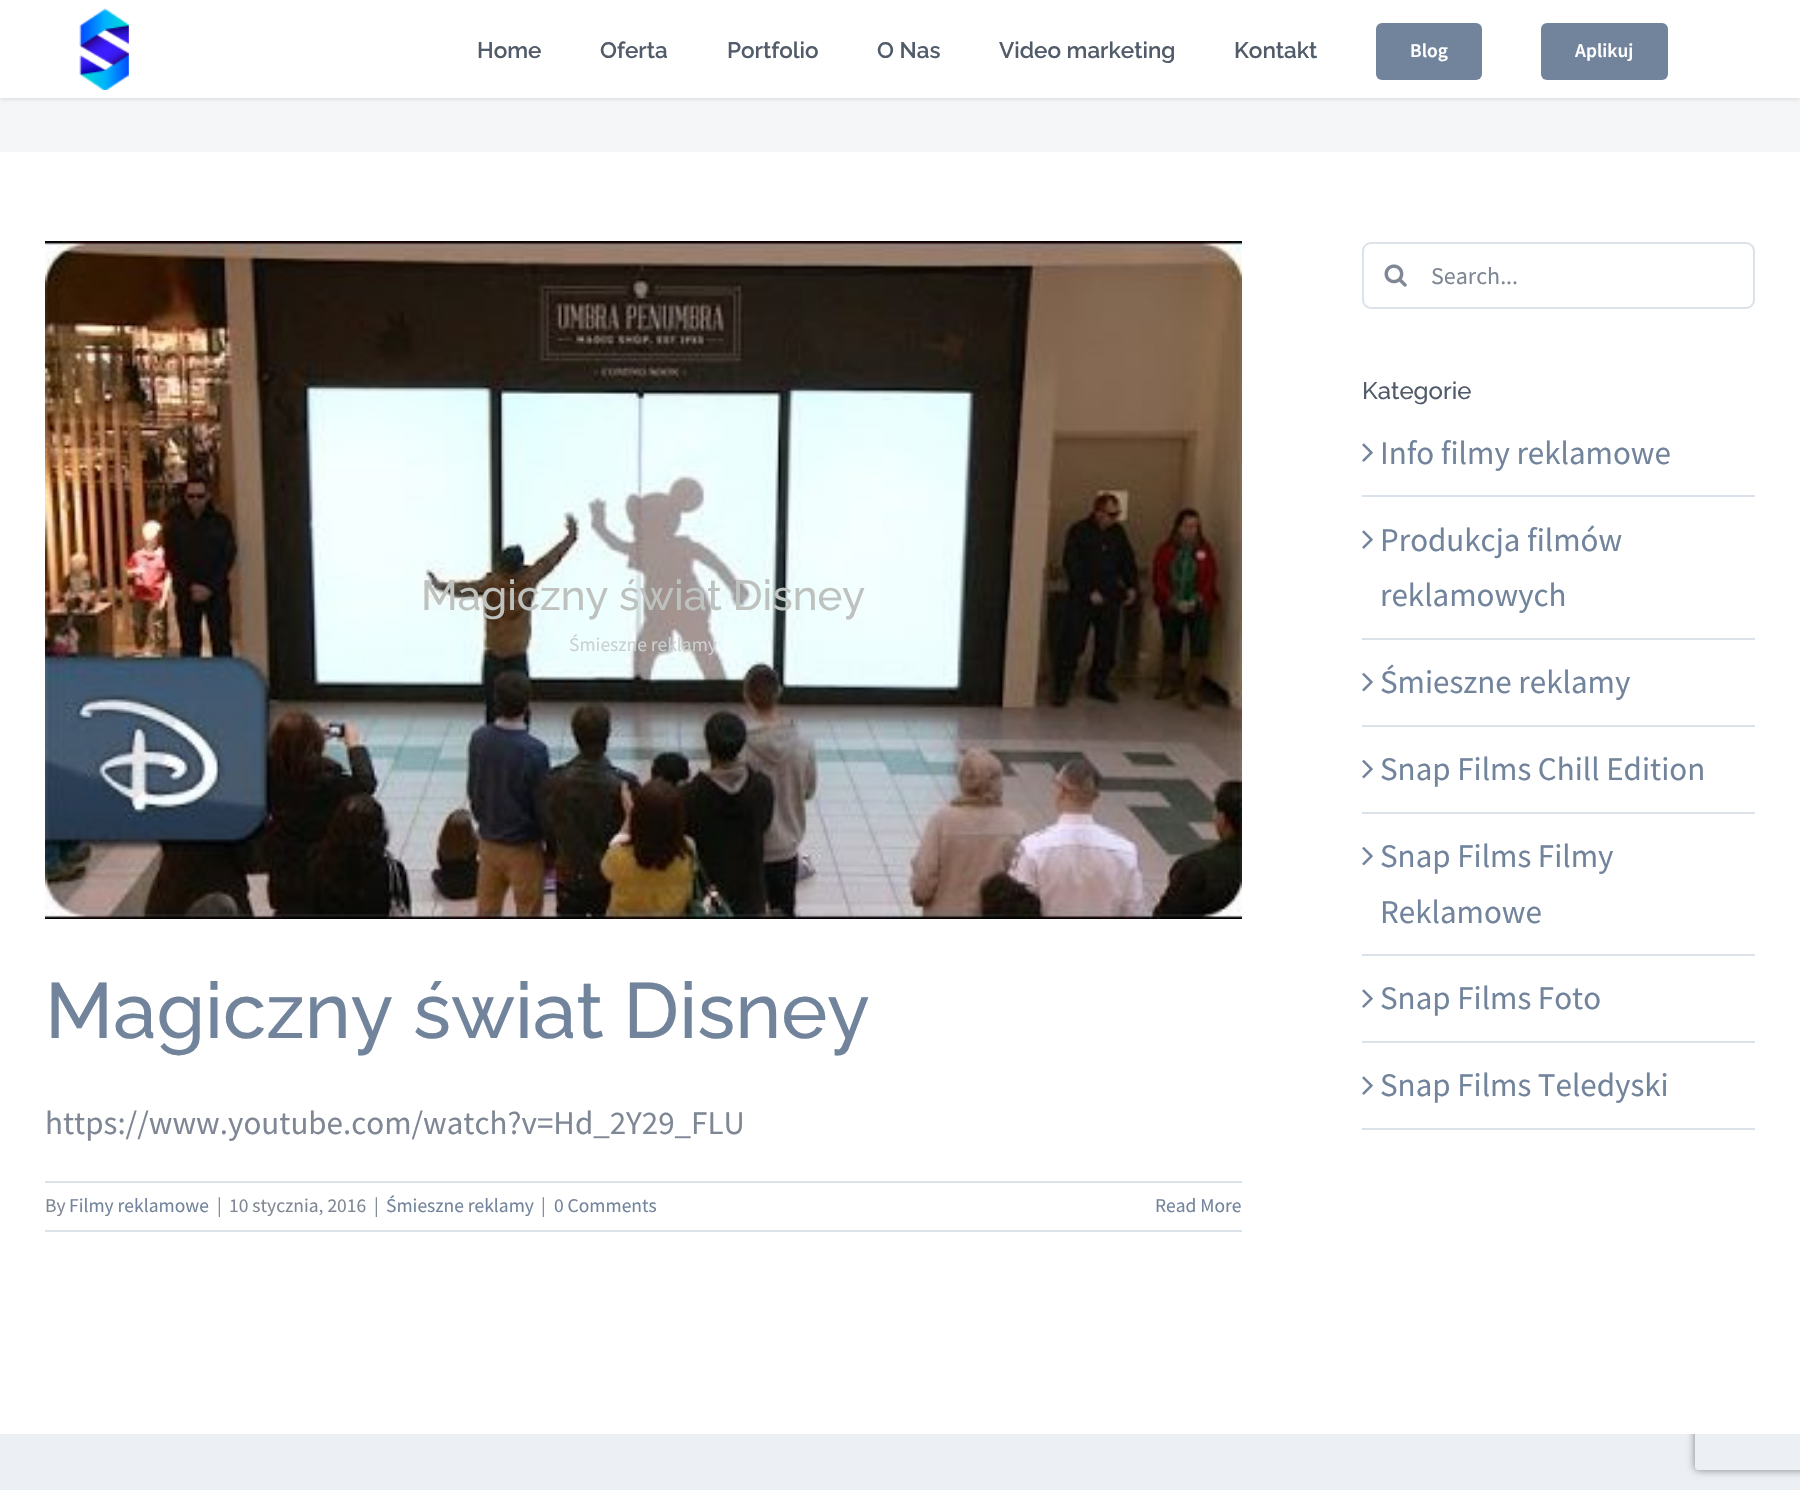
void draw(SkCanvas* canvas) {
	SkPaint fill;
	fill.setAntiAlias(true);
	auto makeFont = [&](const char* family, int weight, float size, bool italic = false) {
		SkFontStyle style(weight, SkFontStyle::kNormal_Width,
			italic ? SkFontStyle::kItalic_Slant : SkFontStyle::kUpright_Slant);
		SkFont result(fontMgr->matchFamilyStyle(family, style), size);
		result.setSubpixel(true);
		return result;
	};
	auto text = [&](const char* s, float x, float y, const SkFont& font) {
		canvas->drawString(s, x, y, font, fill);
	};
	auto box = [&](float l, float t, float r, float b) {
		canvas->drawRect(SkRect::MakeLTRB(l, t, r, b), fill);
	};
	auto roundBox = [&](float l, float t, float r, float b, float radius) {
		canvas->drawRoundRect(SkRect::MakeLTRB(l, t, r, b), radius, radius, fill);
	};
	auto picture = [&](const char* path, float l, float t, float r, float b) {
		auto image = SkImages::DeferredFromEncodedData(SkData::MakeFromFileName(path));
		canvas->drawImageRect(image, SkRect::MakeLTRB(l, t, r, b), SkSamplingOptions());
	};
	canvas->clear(0xFFECF0F5);
	fill.setColor(0xFFF4F6F8);
	box(0, 98, 1800, 152);
	fill.setColor(0x1F000000);
	fill.setMaskFilter(SkMaskFilter::MakeBlur(kNormal_SkBlurStyle, 2));
	canvas->drawRect(SkRect::MakeLTRB(0, 2, 1800, 99), fill);
	fill.setMaskFilter(nullptr);
	fill.setColor(0xFFFFFFFF);
	box(0, 0, 1800, 98);
	picture("image0.png", 79, 8, 129, 90);
	fill.setColor(0xFF72849C);
	roundBox(1376, 23, 1482, 80, 6);
	roundBox(1541, 23, 1668, 80, 6);
	canvas->save();
	canvas->clipPath(SkPathBuilder(SkPathFillType::kEvenOdd).moveTo(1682, 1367).lineTo(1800, 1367).lineTo(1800, 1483).lineTo(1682, 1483).close().moveTo(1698, 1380).lineTo(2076, 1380).cubicTo(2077.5f, 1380, 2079, 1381.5f, 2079, 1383).lineTo(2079, 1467).cubicTo(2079, 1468.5f, 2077.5f, 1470, 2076, 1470).lineTo(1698, 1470).cubicTo(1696.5f, 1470, 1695, 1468.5f, 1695, 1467).lineTo(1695, 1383).cubicTo(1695, 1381.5f, 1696.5f, 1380, 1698, 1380).close().detach(), true);
	fill.setColor(0xFF808080);
	fill.setMaskFilter(SkMaskFilter::MakeBlur(kNormal_SkBlurStyle, 4));
	canvas->drawRoundRect(SkRect::MakeLTRB(1695, 1380, 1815, 1470), 3, 3, fill);
	fill.setMaskFilter(nullptr);
	canvas->restore();
	fill.setColor(0xFFFFFFFF);
	box(0, 152, 1800, 1434);
	picture("image1.png", 45, 241, 1242, 919);
	fill.setColor(0xFFDBE2EA);
	box(45, 1181, 1242, 1183);
	box(45, 1230, 1242, 1232);
	fill.setStyle(SkPaint::kStroke_Style);
	fill.setStrokeWidth(2);
	canvas->drawRoundRect(SkRect::MakeLTRB(1363, 243, 1754, 308), 8, 8, fill);
	picture("image2.png", 1384, 264, 1407, 287);
	fill.setStyle(SkPaint::kFill_Style);
	box(1362, 495, 1755, 497);
	picture("image3.png", 1362, 443, 1373, 462);
	box(1362, 638, 1755, 640);
	picture("image3.png", 1362, 530, 1373, 549);
	box(1362, 725, 1755, 727);
	picture("image4.png", 1362, 673, 1373, 692);
	box(1362, 812, 1755, 814);
	picture("image4.png", 1362, 760, 1373, 779);
	box(1362, 954, 1755, 956);
	picture("image4.png", 1362, 847, 1373, 866);
	box(1362, 1041, 1755, 1043);
	picture("image3.png", 1362, 989, 1373, 1008);
	box(1362, 1128, 1755, 1130);
	picture("image3.png", 1362, 1076, 1373, 1095);
	auto font1 = makeFont("Raleway", 600, 22.5f);
	fill.setColor(0xFF515B69);
	text("Home", 477, 58, font1);
	text("Oferta", 600, 58, font1);
	text("Portfolio", 727, 58, font1);
	text("O Nas", 877, 58, font1);
	text("Video marketing", 999, 58, font1);
	text("Kontakt", 1234, 58, font1);
	auto font2 = makeFont("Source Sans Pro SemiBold", 600, 19.5f);
	fill.setColor(0xFFFFFFFF);
	text("Blog", 1410, 57, font2);
	text("Aplikuj", 1575, 57, font2);
	auto font3 = makeFont("Raleway", 500, 42);
	fill.setColor(0xFFBEC2BE);
	text("Magiczny świat Disney", 421, 610, font3);
	auto font4 = makeFont("Source Sans Pro", 400, 19.5f);
	fill.setColor(0xFFCCD0D0);
	text("Śmieszne reklamy", 569, 651, font4);
	auto font5 = makeFont("Raleway", 500, 78);
	fill.setColor(0xFF72849C);
	text("Magiczny świat Disney", 45, 1038, font5);
	auto font6 = makeFont("Source Sans Pro", 400, 33);
	fill.setColor(0xFF7F8795);
	text("https://www.youtube.com/watch?v=Hd_2Y29_FLU", 45, 1134, font6);
	text("By", 45, 1212, font4);
	fill.setColor(0xFF72849C);
	text("Filmy reklamowe", 69, 1212, font4);
	fill.setColor(0xFF7F8795);
	text("|", 217, 1212, font4);
	text("10 stycznia, 2016", 229, 1212, font4);
	text("|", 374, 1212, font4);
	fill.setColor(0xFF72849C);
	text("Śmieszne reklamy", 386, 1212, font4);
	fill.setColor(0xFF7F8795);
	text("|", 541, 1212, font4);
	fill.setColor(0xFF72849C);
	text("0 Comments", 554, 1212, font4);
	text("Read More", 1155, 1212, font4);
	auto font7 = makeFont("Source Sans Pro", 400, 24);
	fill.setColor(0xFF7F8795);
	text("Search...", 1431, 284, font7);
	auto font8 = makeFont("Raleway", 500, 24);
	fill.setColor(0xFF515B69);
	text("Kategorie", 1362, 399, font8);
	fill.setColor(0xFF72849C);
	text("Info filmy reklamowe", 1380, 464, font6);
	text("Produkcja filmów", 1380, 551, font6);
	text("reklamowych", 1380, 606, font6);
	text("Śmieszne reklamy", 1380, 693, font6);
	text("Snap Films Chill Edition", 1380, 780, font6);
	text("Snap Films Filmy", 1380, 867, font6);
	text("Reklamowe", 1380, 923, font6);
	text("Snap Films Foto", 1380, 1009, font6);
	text("Snap Films Teledyski", 1380, 1096, font6);
}
